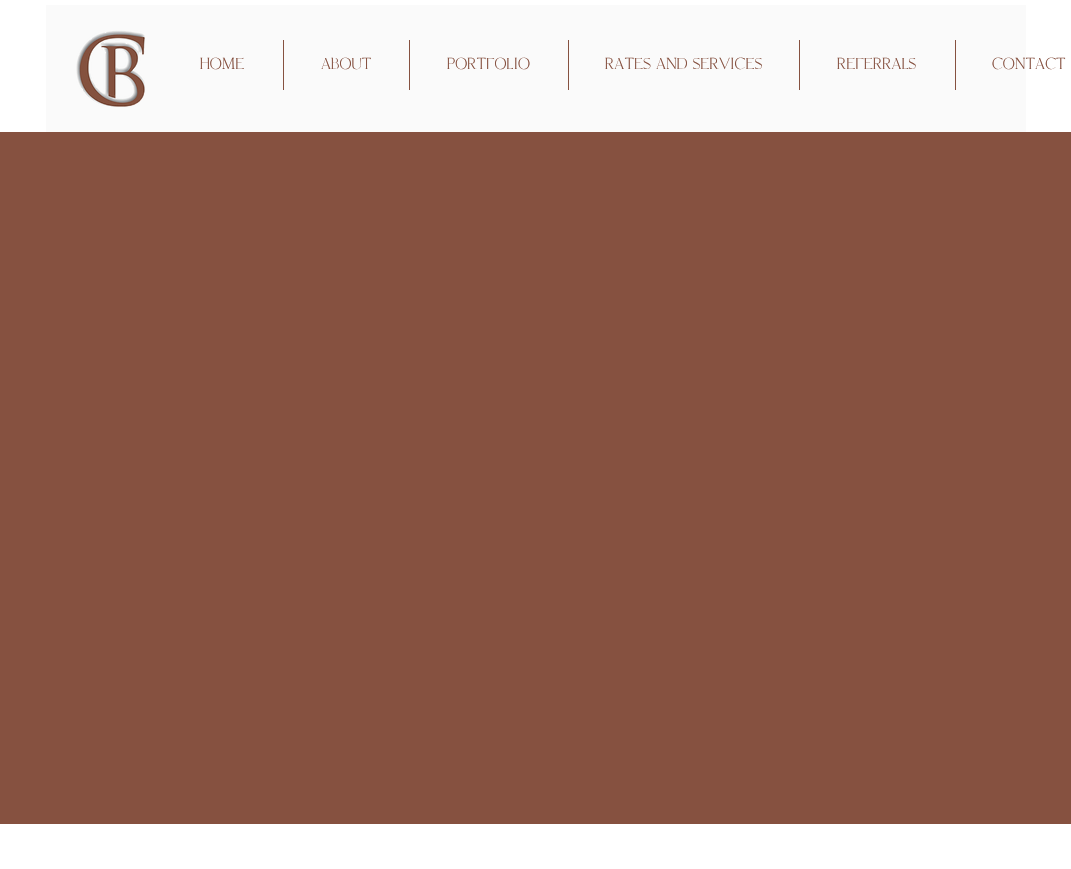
void draw(SkCanvas* canvas) {
	SkPaint fill;
	fill.setAntiAlias(true);
	auto makeFont = [&](const char* family, int weight, float size, bool italic = false) {
		SkFontStyle style(weight, SkFontStyle::kNormal_Width,
			italic ? SkFontStyle::kItalic_Slant : SkFontStyle::kUpright_Slant);
		SkFont result(fontMgr->matchFamilyStyle(family, style), size);
		result.setSubpixel(true);
		return result;
	};
	auto text = [&](const char* s, float x, float y, const SkFont& font) {
		canvas->drawString(s, x, y, font, fill);
	};
	auto box = [&](float l, float t, float r, float b) {
		canvas->drawRect(SkRect::MakeLTRB(l, t, r, b), fill);
	};
	auto picture = [&](const char* path, float l, float t, float r, float b) {
		auto image = SkImages::DeferredFromEncodedData(SkData::MakeFromFileName(path));
		canvas->drawImageRect(image, SkRect::MakeLTRB(l, t, r, b), SkSamplingOptions());
	};
	canvas->clear(0xFFFFFFFF);
	fill.setColor(0xFFFAFAFA);
	box(46, 5, 1026, 132);
	picture("image0.png", 76, 30, 145, 107);
	fill.setColor(0xFF865140);
	box(283, 40, 284, 90);
	box(409, 40, 410, 90);
	box(568, 40, 569, 90);
	box(799, 40, 800, 90);
	box(955, 40, 956, 90);
	box(0, 132, 1071, 824);
	auto font1 = makeFont("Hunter", 400, 16);
	text("HOME", 200, 69, font1);
	text("ABOUT", 321, 69, font1);
	text("PORTFOLIO", 447, 69, font1);
	text("RATES AND SERVICES", 605, 69, font1);
	text("REFERRALS", 837, 69, font1);
	text("CONTACT", 992, 69, font1);
}
